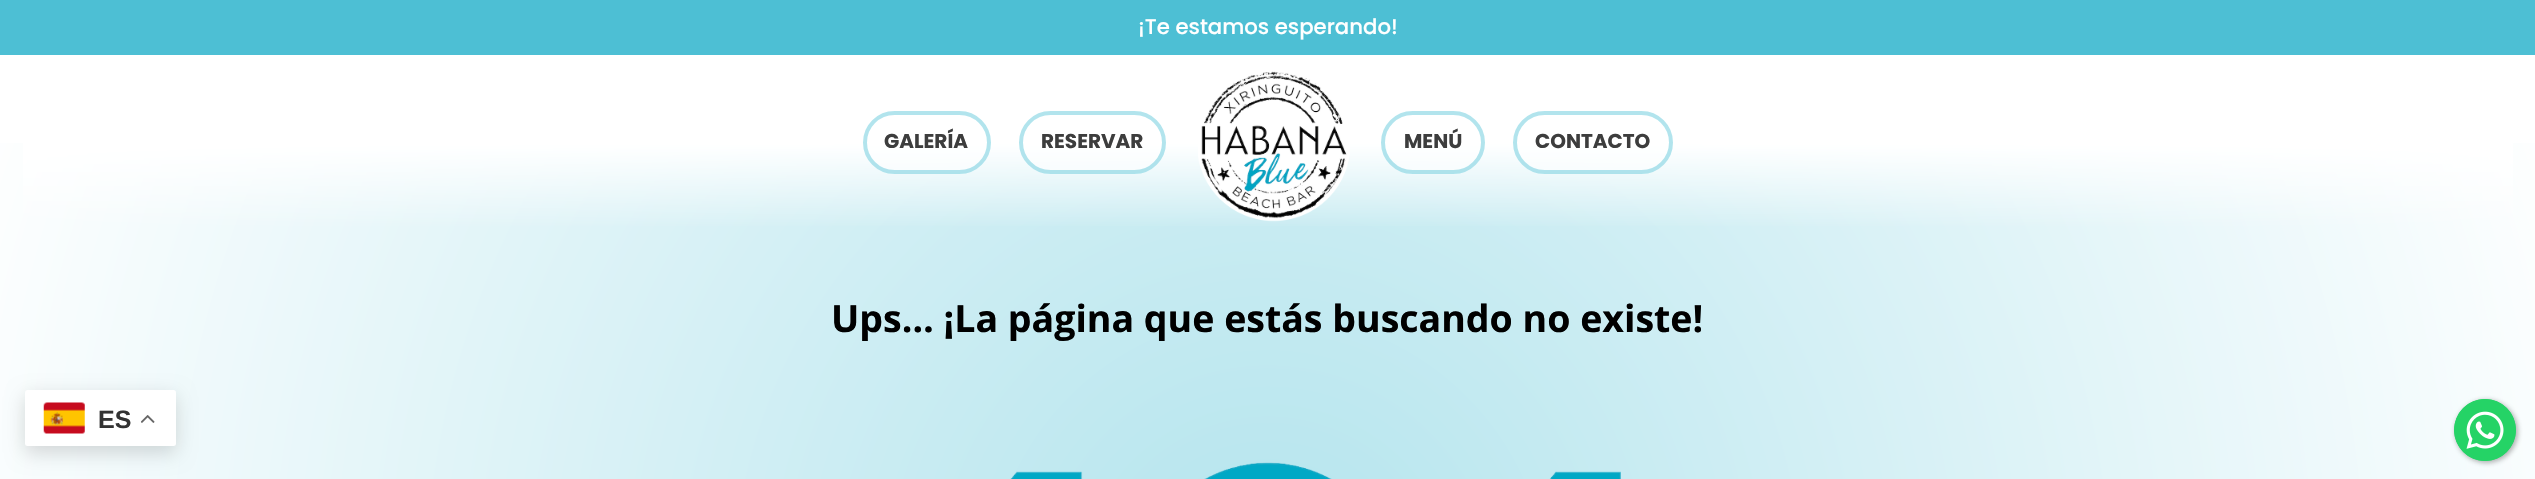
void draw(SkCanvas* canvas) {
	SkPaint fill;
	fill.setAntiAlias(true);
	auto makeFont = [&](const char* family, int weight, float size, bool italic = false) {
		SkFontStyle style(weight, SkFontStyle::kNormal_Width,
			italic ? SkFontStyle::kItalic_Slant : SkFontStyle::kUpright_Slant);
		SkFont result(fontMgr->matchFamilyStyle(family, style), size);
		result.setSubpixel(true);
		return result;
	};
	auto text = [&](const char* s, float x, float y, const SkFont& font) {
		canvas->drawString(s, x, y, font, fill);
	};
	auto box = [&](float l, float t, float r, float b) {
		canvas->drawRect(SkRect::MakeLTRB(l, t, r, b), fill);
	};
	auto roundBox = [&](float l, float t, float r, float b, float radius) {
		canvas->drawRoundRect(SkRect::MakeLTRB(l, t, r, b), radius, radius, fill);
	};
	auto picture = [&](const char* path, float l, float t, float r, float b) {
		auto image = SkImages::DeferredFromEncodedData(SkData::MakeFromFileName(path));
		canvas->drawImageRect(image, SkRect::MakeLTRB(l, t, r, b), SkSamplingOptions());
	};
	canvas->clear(0xFFFFFFFF);
	fill.setColor(0xFF4DBFD4);
	box(0, 0, 2535, 55);
	{
		const SkColor colors[] = {0xFFB3E4ED, 0xFFFFFFFF};
		const float stops[] = {0, 1};
		fill.setShader(SkGradientShader::MakeRadial({1268, 595}, 1378, colors, stops, 2, SkTileMode::kClamp));
		fill.setAlpha(255);
	}
	box(0, 143, 2535, 479);
	{
		const SkColor colors[] = {0xFFFFFFFF, 0x00FFFFFF};
		const float stops[] = {0.5f, 1};
		const SkPoint ends[] = {{1268, 55}, {1268, 230}};
		fill.setShader(SkGradientShader::MakeLinear(ends, colors, stops, 2, SkTileMode::kClamp));
		fill.setAlpha(255);
	}
	box(23, 143, 2513, 226);
	fill.setShader(nullptr);
	fill.setColor(0x91FFFFFF);
	roundBox(863, 111, 991, 174, 31.5f);
	fill.setStyle(SkPaint::kStroke_Style);
	fill.setStrokeWidth(4);
	fill.setColor(0x4D00A4C2);
	canvas->drawRoundRect(SkRect::MakeLTRB(865, 113, 989, 172), 29.5f, 29.5f, fill);
	fill.setStyle(SkPaint::kFill_Style);
	fill.setColor(0x91FFFFFF);
	roundBox(1019, 111, 1166, 174, 31.5f);
	fill.setStyle(SkPaint::kStroke_Style);
	fill.setColor(0x4D00A4C2);
	canvas->drawRoundRect(SkRect::MakeLTRB(1021, 113, 1164, 172), 29.5f, 29.5f, fill);
	picture("image0.png", 1198, 71, 1350, 222);
	fill.setStyle(SkPaint::kFill_Style);
	fill.setColor(0x91FFFFFF);
	roundBox(1381, 111, 1485, 174, 31.5f);
	fill.setStyle(SkPaint::kStroke_Style);
	fill.setColor(0x4D00A4C2);
	canvas->drawRoundRect(SkRect::MakeLTRB(1383, 113, 1483, 172), 29.5f, 29.5f, fill);
	fill.setStyle(SkPaint::kFill_Style);
	fill.setColor(0x91FFFFFF);
	roundBox(1513, 111, 1673, 174, 31.5f);
	fill.setStyle(SkPaint::kStroke_Style);
	fill.setColor(0x4D00A4C2);
	canvas->drawRoundRect(SkRect::MakeLTRB(1515, 113, 1671, 172), 29.5f, 29.5f, fill);
	picture("image1.png", 1010, 462, 1621, 479);
	fill.setStyle(SkPaint::kFill_Style);
	fill.setColor(0x26000000);
	fill.setMaskFilter(SkMaskFilter::MakeBlur(kNormal_SkBlurStyle, 9.5f));
	canvas->drawRoundRect(SkRect::MakeLTRB(25, 396, 176, 453), 2.5f, 2.5f, fill);
	fill.setMaskFilter(nullptr);
	fill.setColor(0xFFFFFFFF);
	roundBox(25, 390, 176, 446, 2.5f);
	picture("image2.png", 43, 402, 85, 434);
	picture("image3.png", 141, 415, 155, 423);
	fill.setColor(0x663C3C3C);
	fill.setMaskFilter(SkMaskFilter::MakeBlur(kNormal_SkBlurStyle, 2.5f));
	canvas->drawRoundRect(SkRect::MakeLTRB(2455, 400, 2518, 463), 31.5f, 31.5f, fill);
	fill.setMaskFilter(nullptr);
	fill.setColor(0xFF25D366);
	canvas->drawCircle(2485, 430, 31, fill);
	picture("image4.png", 2454, 399, 2516, 461);
	auto font1 = makeFont("Poppins", 500, 21.25f);
	fill.setColor(0xFFFFFFFF);
	text("¡Te estamos esperando!", 1138, 34, font1);
	auto font2 = makeFont("Poppins", 700, 20);
	fill.setColor(0xFF3D3D3D);
	text("GALERÍA", 884, 148, font2);
	text("RESERVAR", 1041, 148, font2);
	text("MENÚ", 1404, 148, font2);
	text("CONTACTO", 1535, 148, font2);
	auto font3 = makeFont("Open Sans", 700, 37.5f);
	fill.setColor(0xFF000000);
	text("Ups… ¡La página que estás buscando no existe!", 831, 332, font3);
	auto font4 = makeFont("Liberation Sans", 700, 25);
	fill.setColor(0xFF333333);
	text("ES", 98, 428, font4);
}
